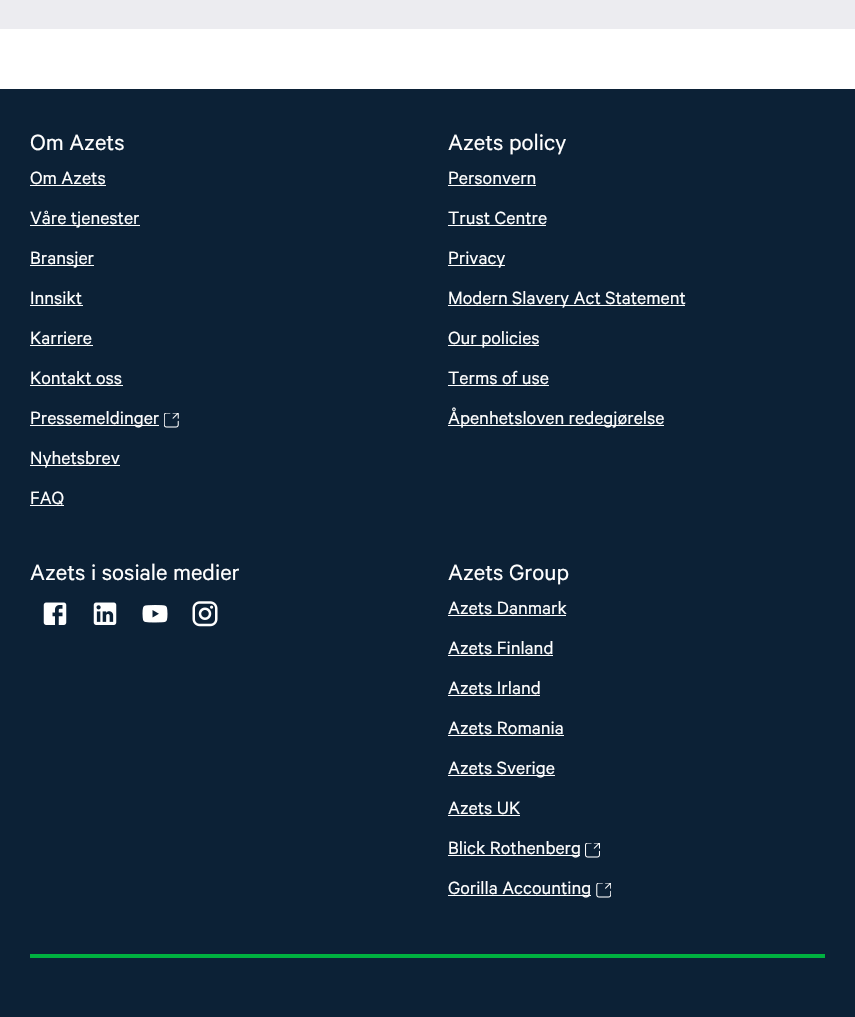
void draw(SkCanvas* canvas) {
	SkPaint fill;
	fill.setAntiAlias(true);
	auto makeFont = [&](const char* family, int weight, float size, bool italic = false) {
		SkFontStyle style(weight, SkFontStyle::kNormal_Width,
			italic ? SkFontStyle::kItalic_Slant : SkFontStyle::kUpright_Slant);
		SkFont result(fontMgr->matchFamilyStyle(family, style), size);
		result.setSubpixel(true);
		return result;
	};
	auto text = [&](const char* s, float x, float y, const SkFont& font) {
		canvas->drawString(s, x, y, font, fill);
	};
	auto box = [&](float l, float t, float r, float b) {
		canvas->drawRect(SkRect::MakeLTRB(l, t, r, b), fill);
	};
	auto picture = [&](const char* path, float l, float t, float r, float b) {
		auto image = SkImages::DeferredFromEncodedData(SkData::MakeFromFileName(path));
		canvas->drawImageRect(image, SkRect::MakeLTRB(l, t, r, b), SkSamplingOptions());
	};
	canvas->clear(0xFFFFFFFF);
	fill.setColor(0xFFECECF0);
	box(0, 0, 855, 29);
	fill.setColor(0xFF0C2136);
	box(0, 89, 855, 1017);
	fill.setColor(0xFFFFFFFF);
	box(30, 185, 106, 186);
	box(30, 225, 140, 226);
	box(30, 265, 94, 266);
	box(30, 305, 83, 306);
	box(30, 345, 93, 346);
	box(30, 385, 123, 386);
	box(30, 425, 159, 426);
	picture("image0.png", 164, 413, 179, 428);
	box(30, 465, 120, 466);
	box(30, 505, 64, 506);
	box(448, 185, 536, 186);
	box(448, 225, 546, 226);
	box(448, 265, 505, 266);
	box(448, 305, 685, 306);
	box(448, 345, 539, 346);
	box(448, 385, 549, 386);
	box(448, 425, 664, 426);
	picture("image1.png", 43, 602, 67, 625);
	picture("image2.png", 93, 602, 117, 625);
	picture("image3.png", 142, 605, 168, 623);
	picture("image4.png", 192, 601, 218, 627);
	box(448, 615, 566, 616);
	box(448, 655, 553, 656);
	box(448, 695, 540, 696);
	box(448, 735, 564, 736);
	box(448, 775, 555, 776);
	box(448, 815, 520, 816);
	box(448, 855, 580, 856);
	picture("image5.png", 585, 843, 600, 858);
	box(448, 895, 591, 896);
	picture("image6.png", 596, 883, 611, 898);
	fill.setColor(0xFF00B140);
	box(30, 954, 825, 958);
	auto font1 = makeFont("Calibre", 400, 25);
	fill.setColor(0xFFFFFFFF);
	text("Om Azets", 30, 150, font1);
	auto font2 = makeFont("Calibre", 400, 20);
	text("Om Azets", 30, 184, font2);
	text("Våre tjenester", 30, 224, font2);
	text("Bransjer", 30, 264, font2);
	text("Innsikt", 30, 304, font2);
	text("Karriere", 30, 344, font2);
	text("Kontakt oss", 30, 384, font2);
	text("Pressemeldinger", 30, 424, font2);
	text("Nyhetsbrev", 30, 464, font2);
	text("FAQ", 30, 504, font2);
	text("Azets policy", 448, 150, font1);
	text("Personvern", 448, 184, font2);
	text("Trust Centre", 448, 224, font2);
	text("Privacy", 448, 264, font2);
	text("Modern Slavery Act Statement", 448, 304, font2);
	text("Our policies", 448, 344, font2);
	text("Terms of use", 448, 384, font2);
	text("Åpenhetsloven redegjørelse", 448, 424, font2);
	text("Azets i sosiale medier", 30, 580, font1);
	text("Azets Group", 448, 580, font1);
	text("Azets Danmark", 448, 614, font2);
	text("Azets Finland", 448, 654, font2);
	text("Azets Irland", 448, 694, font2);
	text("Azets Romania", 448, 734, font2);
	text("Azets Sverige", 448, 774, font2);
	text("Azets UK", 448, 814, font2);
	text("Blick Rothenberg", 448, 854, font2);
	text("Gorilla Accounting", 448, 894, font2);
}
